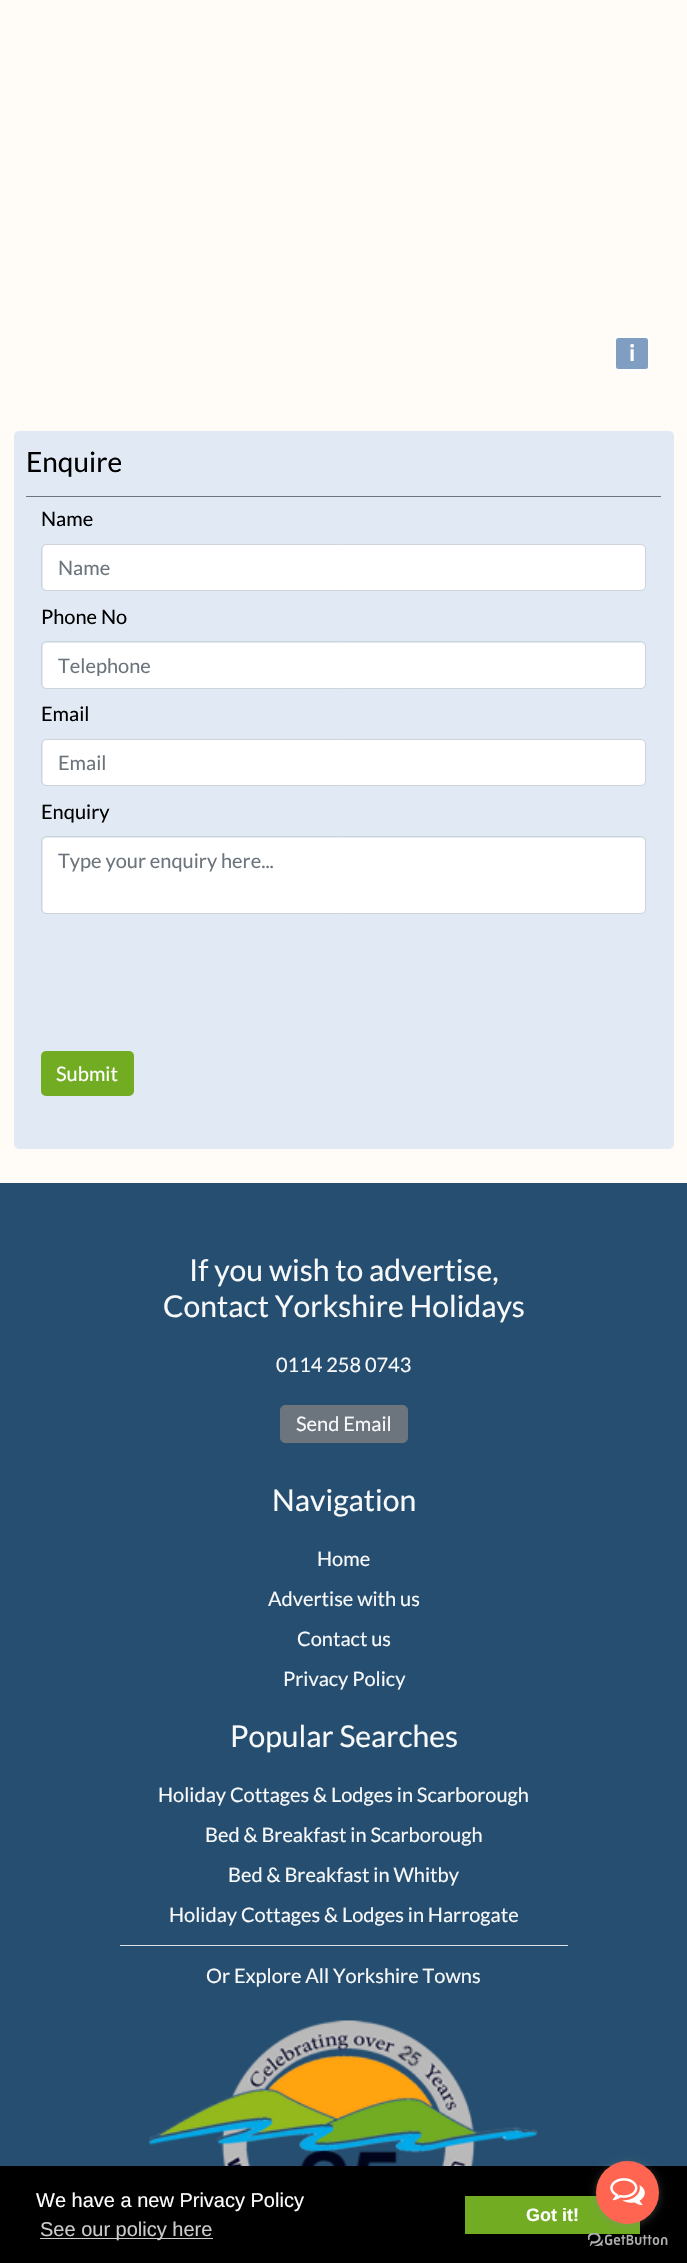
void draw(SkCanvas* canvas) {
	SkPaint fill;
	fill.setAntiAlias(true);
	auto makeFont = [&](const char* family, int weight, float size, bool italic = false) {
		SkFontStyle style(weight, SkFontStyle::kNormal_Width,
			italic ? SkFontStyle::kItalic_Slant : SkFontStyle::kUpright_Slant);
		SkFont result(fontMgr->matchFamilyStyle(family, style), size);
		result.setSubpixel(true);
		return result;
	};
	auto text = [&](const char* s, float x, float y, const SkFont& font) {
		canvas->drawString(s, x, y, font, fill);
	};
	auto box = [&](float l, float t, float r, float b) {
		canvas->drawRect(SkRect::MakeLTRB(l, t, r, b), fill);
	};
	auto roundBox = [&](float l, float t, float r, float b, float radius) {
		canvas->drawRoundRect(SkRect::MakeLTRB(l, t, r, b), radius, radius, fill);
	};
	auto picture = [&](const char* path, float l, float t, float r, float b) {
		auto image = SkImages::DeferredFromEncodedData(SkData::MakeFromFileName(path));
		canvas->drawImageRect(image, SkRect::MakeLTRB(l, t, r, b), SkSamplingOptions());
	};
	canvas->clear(0xFFFFFCF8);
	fill.setColor(0xFFFFFDFB);
	roundBox(613, 334, 651, 373, 5);
	fill.setColor(0xFF809DC2);
	roundBox(616, 338, 648, 369, 2.5f);
	fill.setColor(0xFFE1E9F4);
	roundBox(14, 431, 674, 1149, 5);
	fill.setColor(0xFF6C757D);
	box(26, 496, 661, 497);
	fill.setColor(0xFFFFFFFF);
	roundBox(43, 545, 645, 590, 4);
	fill.setStyle(SkPaint::kStroke_Style);
	fill.setStrokeWidth(1);
	fill.setColor(0xFFCED4DA);
	canvas->drawRoundRect(SkRect::MakeLTRB(41.5f, 544.5f, 645.5f, 590.5f), 4.5f, 4.5f, fill);
	fill.setStyle(SkPaint::kFill_Style);
	fill.setColor(0xFFFFFFFF);
	roundBox(43, 643, 645, 688, 4);
	fill.setStyle(SkPaint::kStroke_Style);
	fill.setColor(0xFFCED4DA);
	canvas->drawRoundRect(SkRect::MakeLTRB(41.5f, 641.5f, 645.5f, 688.5f), 4.5f, 4.5f, fill);
	fill.setStyle(SkPaint::kFill_Style);
	fill.setColor(0xFFFFFFFF);
	roundBox(43, 740, 645, 785, 4);
	fill.setStyle(SkPaint::kStroke_Style);
	fill.setColor(0xFFCED4DA);
	canvas->drawRoundRect(SkRect::MakeLTRB(41.5f, 739.5f, 645.5f, 785.5f), 4.5f, 4.5f, fill);
	fill.setStyle(SkPaint::kFill_Style);
	fill.setColor(0xFFFFFFFF);
	roundBox(43, 838, 645, 913, 4);
	fill.setStyle(SkPaint::kStroke_Style);
	fill.setColor(0xFFCED4DA);
	canvas->drawRoundRect(SkRect::MakeLTRB(41.5f, 836.5f, 645.5f, 913.5f), 4.5f, 4.5f, fill);
	fill.setStyle(SkPaint::kFill_Style);
	fill.setColor(0xFF71AC23);
	roundBox(41, 1051, 134, 1096, 5);
	fill.setColor(0xFF254E70);
	box(0, 1183, 687, 2166);
	fill.setColor(0xFF6C757D);
	canvas->drawRoundRect(SkRect::MakeLTRB(280.5f, 1405.5f, 407.5f, 1442.5f), 4.5f, 4.5f, fill);
	fill.setStyle(SkPaint::kStroke_Style);
	canvas->drawRoundRect(SkRect::MakeLTRB(280.5f, 1405.5f, 407.5f, 1442.5f), 4.5f, 4.5f, fill);
	fill.setStyle(SkPaint::kFill_Style);
	fill.setColor(0xFF808080);
	fill.setMaskFilter(SkMaskFilter::MakeBlur(kNormal_SkBlurStyle, 3));
	canvas->drawRoundRect(SkRect::MakeLTRB(600, 2171, 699, 2246), 2.5f, 2.5f, fill);
	fill.setMaskFilter(nullptr);
	fill.setColor(0xFFDEE2E6);
	box(120, 1945, 568, 1946);
	picture("image0.png", 148, 2020, 538, 2166);
	fill.setColor(0xFF000000);
	box(0, 2166, 687, 2263);
	fill.setColor(0xFFCCCCCC);
	box(40, 2238, 213, 2239);
	fill.setColor(0xFF71AC23);
	box(465, 2196, 640, 2234);
	picture("image2.png", 588, 2233, 668, 2246);
	fill.setColor(0x66888888);
	fill.setMaskFilter(SkMaskFilter::MakeBlur(kNormal_SkBlurStyle, 4.5f));
	canvas->drawRoundRect(SkRect::MakeLTRB(596, 2163, 659, 2225), 31, 31, fill);
	fill.setMaskFilter(nullptr);
	fill.setColor(0xFFFF6550);
	canvas->drawCircle(627.5f, 2192.5f, 31.5f, fill);
	picture("image1.png", 610, 2178, 645, 2206);
	auto font1 = makeFont("Lato", 700, 23);
	fill.setColor(0xFFFFFFFF);
	text("i", 629, 361, font1);
	auto font2 = makeFont("Lato", 400, 28);
	fill.setColor(0xFF000000);
	text("Enquire", 26, 472, font2);
	auto font3 = makeFont("Lato", 400, 20);
	text("Name", 41, 526, font3);
	fill.setColor(0xFF6C757D);
	text("Name", 58, 575, font3);
	fill.setColor(0xFF000000);
	text("Phone No", 41, 624, font3);
	canvas->save();
	canvas->clipRect(SkRect::MakeLTRB(58, 653, 630, 676));
	fill.setColor(0xFF6C757D);
	text("Telephone", 58, 673, font3);
	canvas->restore();
	fill.setColor(0xFF000000);
	text("Email", 41, 721, font3);
	fill.setColor(0xFF6C757D);
	text("Email", 58, 770, font3);
	fill.setColor(0xFF000000);
	text("Enquiry", 41, 819, font3);
	fill.setColor(0xFF6C757D);
	text("Type your enquiry here...", 58, 868, font3);
	fill.setColor(0xFFFFFFFF);
	text("Submit", 56, 1081, font3);
	auto font4 = makeFont("Lato", 400, 30.1f);
	fill.setColor(0xFFF8F9FA);
	text("If you wish to advertise,", 189, 1281, font4);
	text("Contact Yorkshire Holidays", 163, 1317, font4);
	text("0114 258 0743", 276, 1372, font3);
	text("Send Email", 296, 1431, font3);
	text("Navigation", 272, 1511, font4);
	text("Home", 317, 1566, font3);
	text("Advertise with us", 268, 1606, font3);
	text("Contact us", 297, 1646, font3);
	text("Privacy Policy", 283, 1686, font3);
	text("Popular Searches", 230, 1747, font4);
	text("Holiday Cottages & Lodges in Scarborough", 158, 1802, font3);
	text("Bed & Breakfast in Scarborough", 205, 1842, font3);
	text("Bed & Breakfast in Whitby", 228, 1882, font3);
	text("Holiday Cottages & Lodges in Harrogate", 169, 1922, font3);
	text("Or Explore All Yorkshire Towns", 206, 1983, font3);
	auto font5 = makeFont("Liberation Sans", 400, 20);
	fill.setColor(0xFFFFFFFF);
	text("We have a new Privacy Policy", 36, 2207, font5);
	fill.setColor(0xFFCCCCCC);
	text("See our policy here", 40, 2236, font5);
	auto font6 = makeFont("Liberation Sans", 700, 18);
	fill.setColor(0xFFFFFFFF);
	text("Got it!", 526, 2221, font6);
}
